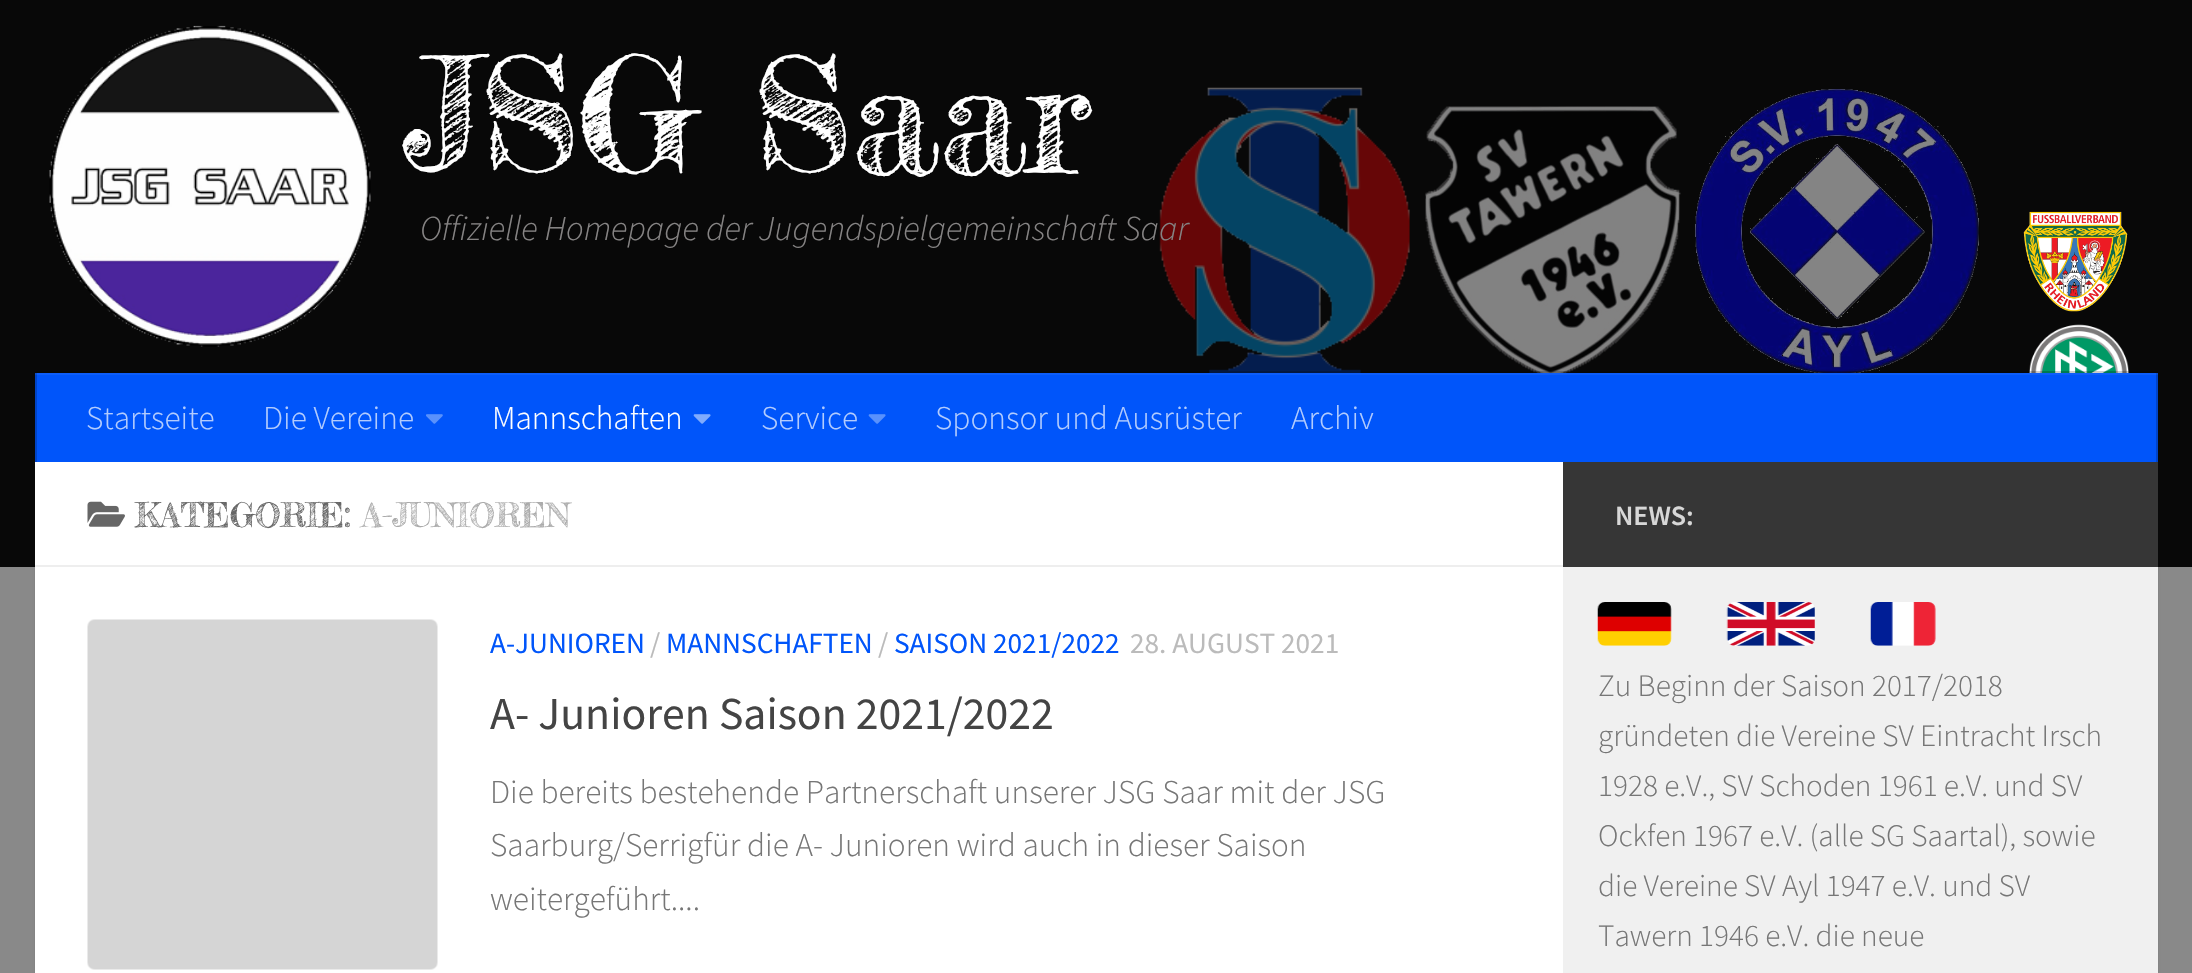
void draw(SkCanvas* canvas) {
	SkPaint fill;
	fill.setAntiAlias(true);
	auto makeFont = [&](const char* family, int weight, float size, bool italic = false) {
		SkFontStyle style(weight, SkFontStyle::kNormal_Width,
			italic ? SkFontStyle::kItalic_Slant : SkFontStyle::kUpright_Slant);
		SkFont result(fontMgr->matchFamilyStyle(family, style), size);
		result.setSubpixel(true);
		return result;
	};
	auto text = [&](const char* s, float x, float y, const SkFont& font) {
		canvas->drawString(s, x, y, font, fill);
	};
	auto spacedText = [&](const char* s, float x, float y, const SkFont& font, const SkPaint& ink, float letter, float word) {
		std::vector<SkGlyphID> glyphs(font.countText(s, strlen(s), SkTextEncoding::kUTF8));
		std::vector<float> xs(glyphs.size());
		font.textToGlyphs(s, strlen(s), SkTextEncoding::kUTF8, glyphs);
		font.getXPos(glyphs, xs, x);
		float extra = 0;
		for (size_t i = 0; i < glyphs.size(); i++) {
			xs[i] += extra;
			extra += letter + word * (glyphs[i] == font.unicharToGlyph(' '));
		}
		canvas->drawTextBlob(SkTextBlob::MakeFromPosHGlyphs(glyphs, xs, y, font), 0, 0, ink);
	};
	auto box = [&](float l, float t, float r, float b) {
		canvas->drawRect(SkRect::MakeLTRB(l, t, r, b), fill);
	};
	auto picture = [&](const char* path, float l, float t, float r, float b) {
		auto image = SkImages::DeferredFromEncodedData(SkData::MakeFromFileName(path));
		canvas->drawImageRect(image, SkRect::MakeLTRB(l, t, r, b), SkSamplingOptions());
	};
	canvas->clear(0xFF898989);
	fill.setColor(0x1A000000);
	fill.setMaskFilter(SkMaskFilter::MakeBlur(kNormal_SkBlurStyle, 1));
	canvas->drawRect(SkRect::MakeLTRB(35, 464, 2158, 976), fill);
	fill.setMaskFilter(nullptr);
	fill.setColor(0xFF080808);
	box(0, 0, 2192, 567);
	picture("image0.png", 49, 25, 371, 347);
	picture("image1.png", 1159, 87, 1410, 373);
	picture("image2.png", 1425, 106, 1681, 373);
	picture("image3.png", 1695, 89, 1979, 373);
	picture("image4.png", 2023, 211, 2128, 312);
	picture("image5.png", 2029, 324, 2129, 373);
	fill.setColor(0x33000000);
	canvas->drawPath(SkPathBuilder().moveTo(35, 371).lineTo(35, 373).lineTo(2158, 373).lineTo(2158, 460).lineTo(2158, 371).close().detach(), fill);
	fill.setColor(0xFF0055FA);
	box(37, 373, 2156, 462);
	fill.setColor(0xFF0044C8);
	box(2156, 373, 2158, 462);
	box(35, 373, 37, 462);
	fill.setColor(0x0DFFFFFF);
	box(35, 373, 2158, 375);
	picture("image6.png", 426, 414, 443, 424);
	picture("image7.png", 693, 414, 711, 424);
	picture("image8.png", 868, 414, 886, 424);
	fill.setColor(0xFFFFFFFF);
	box(35, 462, 1563, 973);
	fill.setColor(0xFFEEEEEE);
	box(35, 565, 1563, 567);
	picture("image9.png", 87, 501, 125, 527);
	picture("image10.png", 87, 619, 438, 970);
	fill.setColor(0xFF363636);
	box(1563, 462, 2158, 567);
	fill.setColor(0xFFF0F0F0);
	box(1563, 567, 2158, 973);
	picture("image11.png", 1597, 602, 1672, 646);
	picture("image12.png", 1726, 602, 1815, 646);
	picture("image13.png", 1870, 602, 1936, 646);
	auto font1 = makeFont("Fredericka the Great", 400, 157.5f);
	fill.setColor(0xFFFFFFFF);
	spacedText("JSG Saar", 403, 172, font1, fill, -1, 0);
	auto font2 = makeFont("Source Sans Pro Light", 300, 35, true);
	fill.setColor(0xFF858383);
	text("Offizielle Homepage der Jugendspielgemeinschaft Saar", 420, 240, font2);
	auto font3 = makeFont("Source Sans Pro Light", 300, 33.3f);
	fill.setColor(0xFFB3CCFE);
	text("Startseite", 86, 429, font3);
	text("Die Vereine", 263, 429, font3);
	fill.setColor(0xFFFFFFFF);
	text("Mannschaften", 492, 429, font3);
	fill.setColor(0xFFB3CCFE);
	text("Service", 761, 429, font3);
	text("Sponsor und Ausrüster", 935, 429, font3);
	text("Archiv", 1291, 429, font3);
	auto font4 = makeFont("Fredericka the Great", 400, 33.3f);
	fill.setColor(0xFF666666);
	text("KATEGORIE:", 135, 527, font4);
	fill.setColor(0xFFAAAAAA);
	text("A-JUNIOREN", 362, 527, font4);
	auto font5 = makeFont("Source Sans Pro", 400, 29.25f);
	fill.setColor(0xFF0055FA);
	text("A-JUNIOREN", 490, 653, font5);
	fill.setColor(0xFFBBBBBB);
	text("/", 650, 653, font5);
	fill.setColor(0xFF0055FA);
	text("MANNSCHAFTEN", 666, 653, font5);
	fill.setColor(0xFFBBBBBB);
	text("/", 878, 653, font5);
	fill.setColor(0xFF0055FA);
	text("SAISON 2021/2022", 894, 653, font5);
	fill.setColor(0xFFBBBBBB);
	text("28. AUGUST 2021", 1130, 653, font5);
	auto font6 = makeFont("Source Sans Pro", 400, 45.75f);
	fill.setColor(0xFF444444);
	text("A- Junioren Saison 2021/2022", 490, 729, font6);
	fill.setColor(0xFF767676);
	text("Die bereits bestehende Partnerschaft unserer JSG Saar mit der JSG", 490, 803, font3);
	text("Saarburg/Serrigfür die A- Junioren wird auch in dieser Saison", 490, 856, font3);
	text("weitergeführt....", 490, 910, font3);
	auto font7 = makeFont("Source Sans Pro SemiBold", 600, 28);
	fill.setColor(0xFFD7D7D7);
	text("NEWS:", 1615, 525, font7);
	auto font8 = makeFont("Source Sans Pro Light", 300, 31.25f);
	fill.setColor(0xFF767676);
	text("Zu Beginn der Saison 2017/2018", 1598, 696, font8);
	text("gründeten die Vereine SV Eintracht Irsch", 1598, 746, font8);
	text("1928 e.V., SV Schoden 1961 e.V. und SV", 1598, 796, font8);
	text("Ockfen 1967 e.V. (alle SG Saartal), sowie", 1598, 846, font8);
	text("die Vereine SV Ayl 1947 e.V. und SV", 1598, 896, font8);
	text("Tawern 1946 e.V. die neue", 1598, 946, font8);
}
